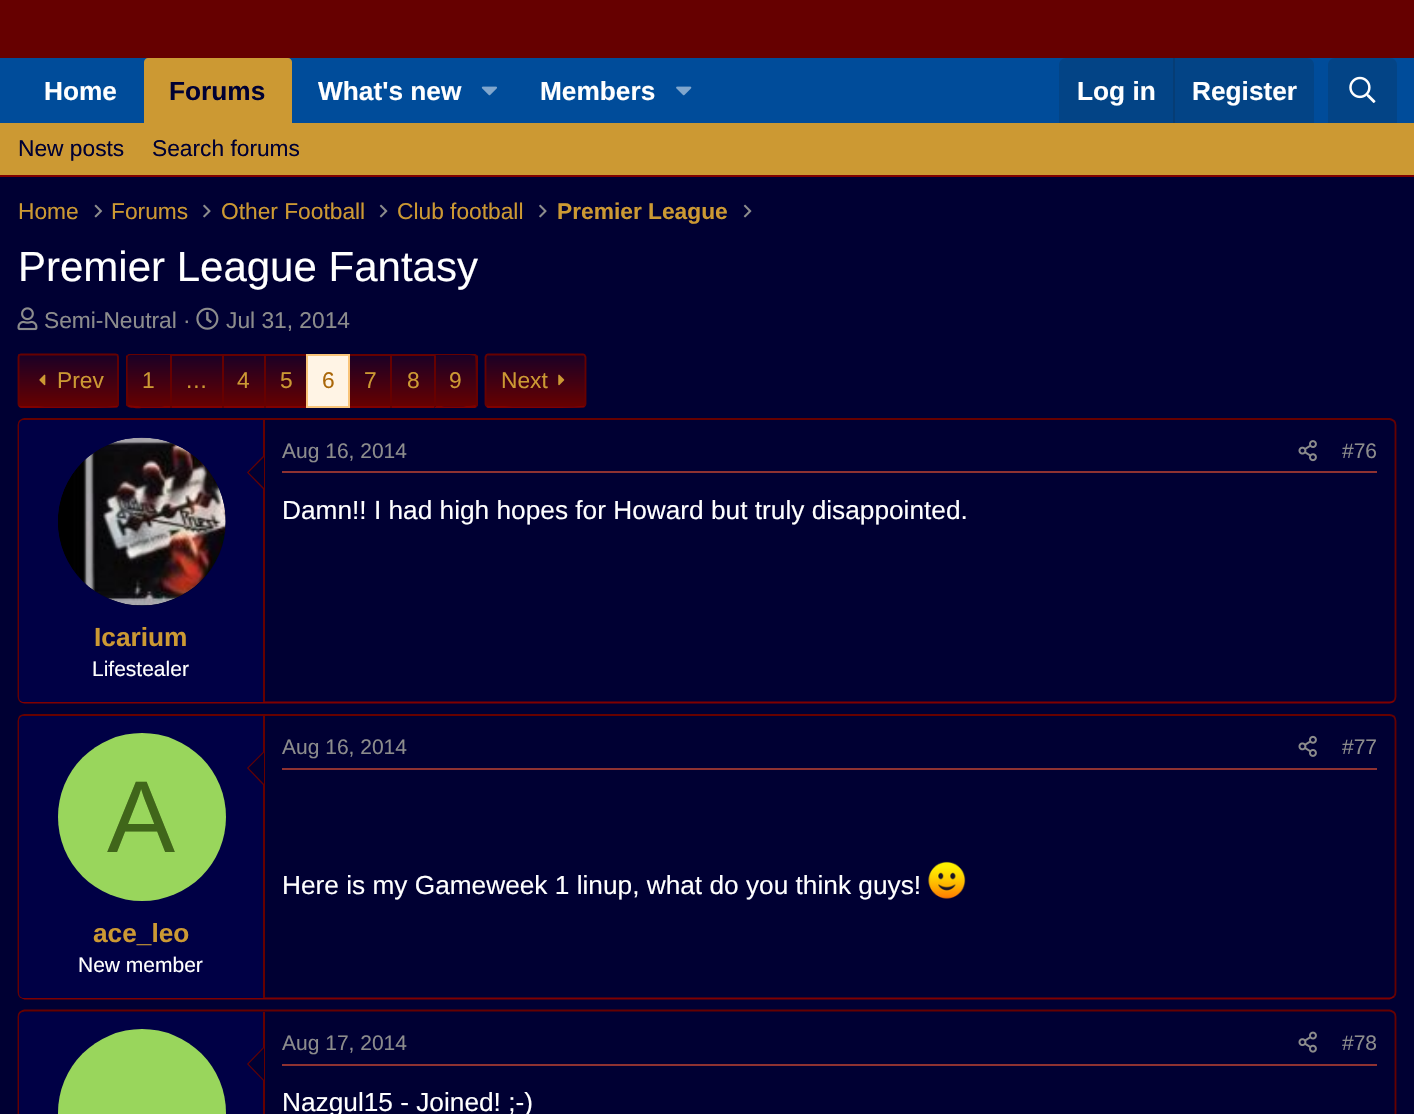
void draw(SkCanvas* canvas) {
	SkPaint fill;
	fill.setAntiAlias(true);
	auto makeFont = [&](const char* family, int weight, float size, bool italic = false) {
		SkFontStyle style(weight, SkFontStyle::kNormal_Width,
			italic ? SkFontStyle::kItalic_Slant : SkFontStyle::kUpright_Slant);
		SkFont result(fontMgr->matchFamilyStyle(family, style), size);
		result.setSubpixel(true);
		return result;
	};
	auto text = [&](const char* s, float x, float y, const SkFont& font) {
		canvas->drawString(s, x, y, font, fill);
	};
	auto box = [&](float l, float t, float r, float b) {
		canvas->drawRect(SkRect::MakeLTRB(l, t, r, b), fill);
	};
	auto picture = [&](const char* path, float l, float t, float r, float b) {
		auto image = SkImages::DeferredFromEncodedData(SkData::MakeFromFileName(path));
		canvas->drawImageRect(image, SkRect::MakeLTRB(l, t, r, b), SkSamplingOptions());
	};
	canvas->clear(0xFF000033);
	fill.setColor(0xFF660000);
	box(0, 0, 1414, 58);
	fill.setColor(0xFF004C9A);
	box(0, 58, 1414, 123);
	fill.setColor(0xFFCC9933);
	canvas->drawPath(SkPathBuilder().moveTo(148, 58).lineTo(288, 58).cubicTo(290, 58, 292, 60, 292, 62).lineTo(292, 123).lineTo(144, 123).lineTo(144, 62).cubicTo(144, 60, 146, 58, 148, 58).close().detach(), fill);
	picture("image0.png", 481, 86, 497, 96);
	picture("image1.png", 676, 86, 692, 96);
	fill.setColor(0xFF034486);
	canvas->drawPath(SkPathBuilder().moveTo(1066, 58).lineTo(1307, 58).cubicTo(1311, 58, 1314, 61, 1314, 65).lineTo(1314, 123).lineTo(1059, 123).lineTo(1059, 65).cubicTo(1059, 61, 1062, 58, 1066, 58).close().detach(), fill);
	fill.setColor(0xFF063D75);
	box(1173, 58, 1175, 123);
	fill.setColor(0xFF034486);
	canvas->drawPath(SkPathBuilder().moveTo(1335, 58).lineTo(1390, 58).cubicTo(1394, 58, 1397, 61, 1397, 65).lineTo(1397, 123).lineTo(1328, 123).lineTo(1328, 65).cubicTo(1328, 61, 1331, 58, 1335, 58).close().detach(), fill);
	picture("image2.png", 1349, 76, 1376, 103);
	fill.setColor(0xFFCC9933);
	box(0, 123, 1414, 175);
	fill.setColor(0xFF800000);
	box(0, 175, 1414, 177);
	picture("image3.png", 94, 204, 103, 218);
	picture("image4.png", 203, 204, 211, 218);
	picture("image5.png", 379, 204, 388, 218);
	picture("image4.png", 539, 204, 547, 218);
	picture("image5.png", 743, 204, 752, 218);
	picture("image6.png", 17, 307, 38, 331);
	picture("image7.png", 196, 307, 219, 330);
	canvas->save();
	canvas->clipPath(SkPathBuilder().moveTo(22, 354).lineTo(115, 354).cubicTo(117, 354, 119, 356, 119, 358).lineTo(119, 404).cubicTo(119, 406, 117, 408, 115, 408).lineTo(22, 408).cubicTo(20, 408, 18, 406, 18, 404).lineTo(18, 358).cubicTo(18, 356, 20, 354, 22, 354).close().detach(), true);
	{
		const SkColor colors[] = {0xFF660000, 0xFF1A0026};
		const float stops[] = {0, 1};
		const SkPoint ends[] = {{68, 406}, {68, 355}};
		fill.setShader(SkGradientShader::MakeLinear(ends, colors, stops, 2, SkTileMode::kClamp));
		fill.setAlpha(255);
	}
	box(18, 355, 119, 406);
	{
		const SkColor colors[] = {0xFF660000, 0xFF1A0026};
		const float stops[] = {0, 1};
		const SkPoint ends[] = {{68, 457}, {68, 406}};
		fill.setShader(SkGradientShader::MakeLinear(ends, colors, stops, 2, SkTileMode::kClamp));
		fill.setAlpha(255);
	}
	box(18, 406, 119, 408);
	canvas->restore();
	fill.setStyle(SkPaint::kStroke_Style);
	fill.setStrokeWidth(1.8f);
	fill.setShader(nullptr);
	fill.setColor(0xFF800000);
	canvas->drawPath(SkPathBuilder().moveTo(117.5f, 406).lineTo(117, 406.5f).cubicTo(115, 407.5f, 45, 407, 37, 407).lineTo(21, 407).lineTo(19, 406).detach(), fill);
	fill.setColor(0xFF660000);
	canvas->drawPath(SkPathBuilder().moveTo(19, 406).lineTo(18.5f, 404).lineTo(18.5f, 357).lineTo(19, 355).lineTo(21, 354.5f).lineTo(115.5f, 354.5f).lineTo(117.5f, 355).lineTo(118, 357).lineTo(118, 404).lineTo(117.5f, 406).detach(), fill);
	picture("image8.png", 39, 374, 46, 386);
	canvas->save();
	canvas->clipPath(SkPathBuilder().moveTo(130, 354).lineTo(170, 354).lineTo(170, 408).lineTo(130, 408).cubicTo(128, 408, 126, 406, 126, 404).lineTo(126, 358).cubicTo(126, 356, 128, 354, 130, 354).close().detach(), true);
	fill.setStyle(SkPaint::kFill_Style);
	{
		const SkColor colors[] = {0xFF660000, 0xFF1A0026};
		const float stops[] = {0, 1};
		const SkPoint ends[] = {{149, 355}, {149, 305}};
		fill.setShader(SkGradientShader::MakeLinear(ends, colors, stops, 2, SkTileMode::kClamp));
		fill.setAlpha(255);
	}
	box(126, 354, 130, 355);
	{
		const SkColor colors[] = {0xFF660000, 0xFF1A0026};
		const float stops[] = {0, 1};
		const SkPoint ends[] = {{149, 406}, {149, 355}};
		fill.setShader(SkGradientShader::MakeLinear(ends, colors, stops, 2, SkTileMode::kClamp));
		fill.setAlpha(255);
	}
	box(126, 355, 170, 406);
	{
		const SkColor colors[] = {0xFF660000, 0xFF1A0026};
		const float stops[] = {0, 1};
		const SkPoint ends[] = {{149, 457}, {149, 406}};
		fill.setShader(SkGradientShader::MakeLinear(ends, colors, stops, 2, SkTileMode::kClamp));
		fill.setAlpha(255);
	}
	box(126, 406, 170, 408);
	canvas->restore();
	fill.setShader(nullptr);
	fill.setColor(0xFF660000);
	canvas->drawPath(SkPathBuilder().moveTo(130, 354).lineTo(170, 354).lineTo(170, 355).lineTo(130, 355).lineTo(128, 356).lineTo(127, 355).close().detach(), fill);
	fill.setColor(0xFF800000);
	canvas->drawPath(SkPathBuilder().moveTo(170, 408).lineTo(144, 408).cubicTo(141, 408, 130, 409, 127, 406).lineTo(129, 405).cubicTo(130, 407, 165, 406, 170, 406).close().detach(), fill);
	fill.setColor(0xFF660000);
	canvas->drawPath(SkPathBuilder().moveTo(129, 405).lineTo(127, 406).lineTo(126, 405).lineTo(126, 356).lineTo(127, 355).lineTo(128, 356).cubicTo(127, 357, 128, 404, 129, 405).close().detach(), fill);
	{
		const SkColor colors[] = {0xFF660000, 0xFF1A0026};
		const float stops[] = {0, 1};
		const SkPoint ends[] = {{197, 406}, {197, 355}};
		fill.setShader(SkGradientShader::MakeLinear(ends, colors, stops, 2, SkTileMode::kClamp));
		fill.setAlpha(255);
	}
	box(172, 356, 222, 406);
	fill.setShader(nullptr);
	fill.setColor(0xFF660000);
	box(170, 354, 306, 356);
	fill.setColor(0xFF800000);
	box(170, 406, 306, 408);
	fill.setColor(0xFF660000);
	box(170, 354, 172, 408);
	{
		const SkColor colors[] = {0xFF660000, 0xFF1A0026};
		const float stops[] = {0, 1};
		const SkPoint ends[] = {{244, 406}, {244, 355}};
		fill.setShader(SkGradientShader::MakeLinear(ends, colors, stops, 2, SkTileMode::kClamp));
		fill.setAlpha(255);
	}
	box(224, 356, 264, 406);
	fill.setShader(nullptr);
	fill.setColor(0xFF660000);
	box(222, 354, 224, 408);
	{
		const SkColor colors[] = {0xFF660000, 0xFF1A0026};
		const float stops[] = {0, 1};
		const SkPoint ends[] = {{286, 406}, {286, 355}};
		fill.setShader(SkGradientShader::MakeLinear(ends, colors, stops, 2, SkTileMode::kClamp));
		fill.setAlpha(255);
	}
	box(266, 356, 306, 406);
	fill.setShader(nullptr);
	fill.setColor(0xFF660000);
	box(264, 354, 266, 408);
	fill.setColor(0xFFFFF4E5);
	canvas->drawRect(SkRect::MakeLTRB(307, 355, 349, 407), fill);
	fill.setStyle(SkPaint::kStroke_Style);
	fill.setStrokeWidth(2);
	fill.setColor(0xFFF9C479);
	canvas->drawRect(SkRect::MakeLTRB(307, 355, 349, 407), fill);
	fill.setStyle(SkPaint::kFill_Style);
	{
		const SkColor colors[] = {0xFF660000, 0xFF1A0026};
		const float stops[] = {0, 1};
		const SkPoint ends[] = {{370, 406}, {370, 355}};
		fill.setShader(SkGradientShader::MakeLinear(ends, colors, stops, 2, SkTileMode::kClamp));
		fill.setAlpha(255);
	}
	box(350, 356, 390, 406);
	fill.setShader(nullptr);
	fill.setColor(0xFF660000);
	box(350, 354, 434, 356);
	fill.setColor(0xFF800000);
	box(350, 406, 434, 408);
	{
		const SkColor colors[] = {0xFF660000, 0xFF1A0026};
		const float stops[] = {0, 1};
		const SkPoint ends[] = {{413, 406}, {413, 355}};
		fill.setShader(SkGradientShader::MakeLinear(ends, colors, stops, 2, SkTileMode::kClamp));
		fill.setAlpha(255);
	}
	box(392, 356, 434, 406);
	fill.setShader(nullptr);
	fill.setColor(0xFF660000);
	box(390, 354, 392, 408);
	canvas->save();
	canvas->clipPath(SkPathBuilder().moveTo(434, 354).lineTo(474, 354).cubicTo(476, 354, 478, 356, 478, 358).lineTo(478, 404).cubicTo(478, 406, 476, 408, 474, 408).lineTo(434, 408).close().detach(), true);
	{
		const SkColor colors[] = {0xFF660000, 0xFF1A0026};
		const float stops[] = {0, 1};
		const SkPoint ends[] = {{456, 355}, {456, 305}};
		fill.setShader(SkGradientShader::MakeLinear(ends, colors, stops, 2, SkTileMode::kClamp));
		fill.setAlpha(255);
	}
	box(434, 354, 478, 355);
	{
		const SkColor colors[] = {0xFF660000, 0xFF1A0026};
		const float stops[] = {0, 1};
		const SkPoint ends[] = {{456, 406}, {456, 355}};
		fill.setShader(SkGradientShader::MakeLinear(ends, colors, stops, 2, SkTileMode::kClamp));
		fill.setAlpha(255);
	}
	box(435, 355, 478, 406);
	canvas->restore();
	fill.setShader(nullptr);
	fill.setColor(0xFF660000);
	canvas->drawPath(SkPathBuilder().moveTo(436, 355).cubicTo(441, 355, 474, 354, 475, 356).lineTo(477, 355).lineTo(474, 354).lineTo(434, 354).lineTo(436, 356).close().detach(), fill);
	canvas->drawPath(SkPathBuilder().moveTo(477, 355).lineTo(478, 356).lineTo(478, 405).lineTo(477, 407).lineTo(475, 405).lineTo(476, 404).cubicTo(476, 400, 476, 357, 475, 356).close().detach(), fill);
	fill.setColor(0xFF800000);
	canvas->drawPath(SkPathBuilder().moveTo(475, 408).lineTo(434, 408).lineTo(436, 406).cubicTo(441, 406, 474, 407, 475, 405).lineTo(477, 407).close().detach(), fill);
	fill.setColor(0xFF660000);
	canvas->drawPath(SkPathBuilder().moveTo(434, 408).lineTo(436, 406).lineTo(436, 356).lineTo(434, 354).close().detach(), fill);
	canvas->save();
	canvas->clipPath(SkPathBuilder().moveTo(489, 354).lineTo(582, 354).cubicTo(584, 354, 586, 356, 586, 358).lineTo(586, 404).cubicTo(586, 406, 584, 408, 582, 408).lineTo(489, 408).cubicTo(487, 408, 485, 406, 485, 404).lineTo(485, 358).cubicTo(485, 356, 487, 354, 489, 354).close().detach(), true);
	{
		const SkColor colors[] = {0xFF660000, 0xFF1A0026};
		const float stops[] = {0, 1};
		const SkPoint ends[] = {{536, 406}, {536, 355}};
		fill.setShader(SkGradientShader::MakeLinear(ends, colors, stops, 2, SkTileMode::kClamp));
		fill.setAlpha(255);
	}
	box(485, 355, 586, 406);
	{
		const SkColor colors[] = {0xFF660000, 0xFF1A0026};
		const float stops[] = {0, 1};
		const SkPoint ends[] = {{536, 457}, {536, 406}};
		fill.setShader(SkGradientShader::MakeLinear(ends, colors, stops, 2, SkTileMode::kClamp));
		fill.setAlpha(255);
	}
	box(485, 406, 586, 408);
	canvas->restore();
	fill.setStyle(SkPaint::kStroke_Style);
	fill.setStrokeWidth(1.8f);
	fill.setShader(nullptr);
	fill.setColor(0xFF800000);
	canvas->drawPath(SkPathBuilder().moveTo(584.5f, 406).lineTo(584, 406.5f).cubicTo(582, 407.5f, 512.5f, 407, 504, 407).lineTo(488, 407).lineTo(486.5f, 406).detach(), fill);
	fill.setColor(0xFF660000);
	canvas->drawPath(SkPathBuilder().moveTo(486.5f, 406).lineTo(485.5f, 404).lineTo(485.5f, 357).lineTo(486.5f, 355).lineTo(488, 354.5f).lineTo(583, 354.5f).lineTo(584.5f, 355).lineTo(585.5f, 357).lineTo(585.5f, 404).lineTo(584.5f, 406).detach(), fill);
	picture("image9.png", 558, 374, 565, 386);
	fill.setColor(0xFF800000);
	canvas->drawPath(SkPathBuilder().moveTo(1394, 701).cubicTo(1392.5f, 702, 1391, 702.5f, 1389.5f, 702.5f).lineTo(24.5f, 702.5f).cubicTo(23, 702.5f, 21.5f, 702, 20, 701).detach(), fill);
	fill.setColor(0xFF660000);
	canvas->drawPath(SkPathBuilder().moveTo(20, 701).cubicTo(19, 699.5f, 18.5f, 698, 18.5f, 696.5f).lineTo(18.5f, 425).cubicTo(18.5f, 423.5f, 19, 422, 20, 421).cubicTo(21.5f, 420, 23, 419, 24.5f, 419).lineTo(1389.5f, 419).cubicTo(1391, 419, 1392.5f, 420, 1394, 421).cubicTo(1395, 422, 1395.5f, 423.5f, 1395.5f, 425).lineTo(1395.5f, 696.5f).cubicTo(1395.5f, 698, 1395, 699.5f, 1394, 701).detach(), fill);
	fill.setStyle(SkPaint::kFill_Style);
	fill.setColor(0xFF8E3232);
	box(282, 471, 1377, 473);
	picture("image10.png", 1298, 440, 1317, 462);
	fill.setColor(0xFF000045);
	canvas->drawPath(SkPathBuilder().moveTo(24, 420).lineTo(264, 420).lineTo(264, 702).lineTo(24, 702).cubicTo(21, 702, 19, 700, 19, 697).lineTo(19, 425).cubicTo(19, 422, 21, 420, 24, 420).close().detach(), fill);
	fill.setColor(0xFF660000);
	box(263, 420, 265, 702);
	fill.setColor(0xFF000033);
	canvas->drawCircle(142, 522, 84, fill);
	picture("image11.png", 58, 437, 226, 606);
	fill.setColor(0xFF660000);
	canvas->drawPath(SkPathBuilder().moveTo(264, 455).lineTo(264, 490).lineTo(247, 472.5f).close().detach(), fill);
	fill.setColor(0xFF000033);
	canvas->drawPath(SkPathBuilder().moveTo(264, 457).lineTo(264, 488).lineTo(248.5f, 472.5f).close().detach(), fill);
	fill.setStyle(SkPaint::kStroke_Style);
	fill.setColor(0xFF800000);
	canvas->drawPath(SkPathBuilder().moveTo(1394, 996.5f).cubicTo(1392.5f, 997.5f, 1391, 998.5f, 1389.5f, 998.5f).lineTo(24.5f, 998.5f).cubicTo(23, 998.5f, 21.5f, 997.5f, 20, 996.5f).detach(), fill);
	fill.setColor(0xFF660000);
	canvas->drawPath(SkPathBuilder().moveTo(20, 996.5f).cubicTo(19, 995.5f, 18.5f, 994, 18.5f, 992).lineTo(18.5f, 721).cubicTo(18.5f, 719.5f, 19, 718, 20, 716.5f).cubicTo(21.5f, 715.5f, 23, 715, 24.5f, 715).lineTo(1389.5f, 715).cubicTo(1391, 715, 1392.5f, 715.5f, 1394, 716.5f).cubicTo(1395, 718, 1395.5f, 719.5f, 1395.5f, 721).lineTo(1395.5f, 992).cubicTo(1395.5f, 994, 1395, 995.5f, 1394, 996.5f).detach(), fill);
	fill.setStyle(SkPaint::kFill_Style);
	fill.setColor(0xFF000045);
	canvas->drawPath(SkPathBuilder().moveTo(24, 716).lineTo(264, 716).lineTo(264, 998).lineTo(24, 998).cubicTo(21, 998, 19, 996, 19, 993).lineTo(19, 721).cubicTo(19, 718, 21, 716, 24, 716).close().detach(), fill);
	fill.setColor(0xFF660000);
	box(263, 716, 265, 998);
	canvas->drawPath(SkPathBuilder().moveTo(264, 751).lineTo(264, 786).lineTo(247, 768).close().detach(), fill);
	fill.setColor(0xFF000033);
	canvas->drawPath(SkPathBuilder().moveTo(264, 752.5f).lineTo(264, 784).lineTo(248.5f, 768).close().detach(), fill);
	fill.setColor(0xFF99D65C);
	canvas->drawCircle(142, 817, 84, fill);
	fill.setColor(0xFF8E3232);
	box(282, 768, 1377, 770);
	picture("image12.png", 1298, 735, 1317, 757);
	picture("image13.png", 928, 861, 966, 899);
	fill.setStyle(SkPaint::kStroke_Style);
	fill.setColor(0xFF660000);
	canvas->drawPath(SkPathBuilder().moveTo(20, 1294).cubicTo(19, 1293, 18.5f, 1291.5f, 18.5f, 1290).lineTo(18.5f, 1017).cubicTo(18.5f, 1015, 19, 1013.5f, 20, 1012.5f).cubicTo(21.5f, 1011.5f, 23, 1010.5f, 24.5f, 1010.5f).lineTo(1389.5f, 1010.5f).cubicTo(1391, 1010.5f, 1392.5f, 1011.5f, 1394, 1012.5f).cubicTo(1395, 1013.5f, 1395.5f, 1015, 1395.5f, 1017).lineTo(1395.5f, 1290).cubicTo(1395.5f, 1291.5f, 1395, 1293, 1394, 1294).detach(), fill);
	fill.setStyle(SkPaint::kFill_Style);
	fill.setColor(0xFF000045);
	canvas->drawPath(SkPathBuilder().moveTo(24, 1012).lineTo(264, 1012).lineTo(264, 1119).lineTo(24, 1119).cubicTo(21, 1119, 19, 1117, 19, 1114).lineTo(19, 1017).cubicTo(19, 1014, 21, 1012, 24, 1012).close().detach(), fill);
	fill.setColor(0xFF660000);
	box(263, 1012, 265, 1114);
	fill.setColor(0xFF99D65C);
	canvas->drawCircle(142, 1113, 84, fill);
	fill.setColor(0xFF660000);
	canvas->drawPath(SkPathBuilder().moveTo(264, 1046.5f).lineTo(264, 1081.5f).lineTo(247, 1064).close().detach(), fill);
	fill.setColor(0xFF000033);
	canvas->drawPath(SkPathBuilder().moveTo(264, 1048).lineTo(264, 1080).lineTo(248.5f, 1064).close().detach(), fill);
	fill.setColor(0xFF8E3232);
	box(282, 1064, 1377, 1066);
	picture("image14.png", 1298, 1031, 1317, 1053);
	auto font1 = makeFont("Liberation Sans", 700, 26.25f);
	fill.setColor(0xFFFFFFFF);
	text("Home", 44, 100, font1);
	fill.setColor(0xFF000033);
	text("Forums", 169, 100, font1);
	fill.setColor(0xFFFFFFFF);
	text("What's new", 318, 100, font1);
	text("Members", 540, 100, font1);
	text("Log in", 1077, 100, font1);
	text("Register", 1192, 100, font1);
	auto font2 = makeFont("Liberation Sans", 400, 22.75f);
	fill.setColor(0xFF000033);
	text("New posts", 18, 156, font2);
	text("Search forums", 152, 156, font2);
	fill.setColor(0xFFCC9933);
	text("Home", 18, 219, font2);
	text("Forums", 111, 219, font2);
	text("Other Football", 221, 219, font2);
	text("Club football", 397, 219, font2);
	auto font3 = makeFont("Liberation Sans", 700, 22.75f);
	text("Premier League", 557, 219, font3);
	auto font4 = makeFont("Liberation Sans", 400, 42);
	fill.setColor(0xFFFFFFFF);
	text("Premier League Fantasy", 18, 281, font4);
	fill.setColor(0xFF8C8C8C);
	text("Semi-Neutral ·", 44, 328, font2);
	text("Jul 31, 2014", 226, 328, font2);
	fill.setColor(0xFFCC9933);
	text("Prev", 57, 388, font2);
	text("1", 142, 388, font2);
	text("…", 185, 388, font2);
	text("4", 237, 388, font2);
	text("5", 280, 388, font2);
	fill.setColor(0xFFAA6709);
	text("6", 322, 388, font2);
	fill.setColor(0xFFCC9933);
	text("7", 364, 388, font2);
	text("8", 407, 388, font2);
	text("9", 449, 388, font2);
	text("Next", 501, 388, font2);
	auto font5 = makeFont("Liberation Sans", 400, 21);
	fill.setColor(0xFF8C8C8C);
	text("Aug 16, 2014", 282, 458, font5);
	text("#76", 1342, 458, font5);
	auto font6 = makeFont("Liberation Sans", 400, 26.25f);
	fill.setColor(0xFFFFFFFF);
	text("Damn!! I had high hopes for Howard but truly disappointed.", 282, 519, font6);
	fill.setColor(0xFFCC9933);
	text("Icarium", 94, 646, font1);
	fill.setColor(0xFFFFFFFF);
	text("Lifestealer", 92, 676, font5);
	auto font7 = makeFont("Liberation Sans", 400, 102);
	fill.setColor(0xFF40661A);
	text("A", 107, 852, font7);
	fill.setColor(0xFFCC9933);
	text("ace_leo", 93, 942, font1);
	fill.setColor(0xFFFFFFFF);
	text("New member", 78, 972, font5);
	fill.setColor(0xFF8C8C8C);
	text("Aug 16, 2014", 282, 754, font5);
	text("#77", 1342, 754, font5);
	fill.setColor(0xFFFFFFFF);
	text("Here is my Gameweek 1 linup, what do you think guys!", 282, 894, font6);
	fill.setColor(0xFF8C8C8C);
	text("Aug 17, 2014", 282, 1050, font5);
	text("#78", 1342, 1050, font5);
	fill.setColor(0xFFFFFFFF);
	text("Nazgul15 - Joined! ;-)", 282, 1111, font6);
}
